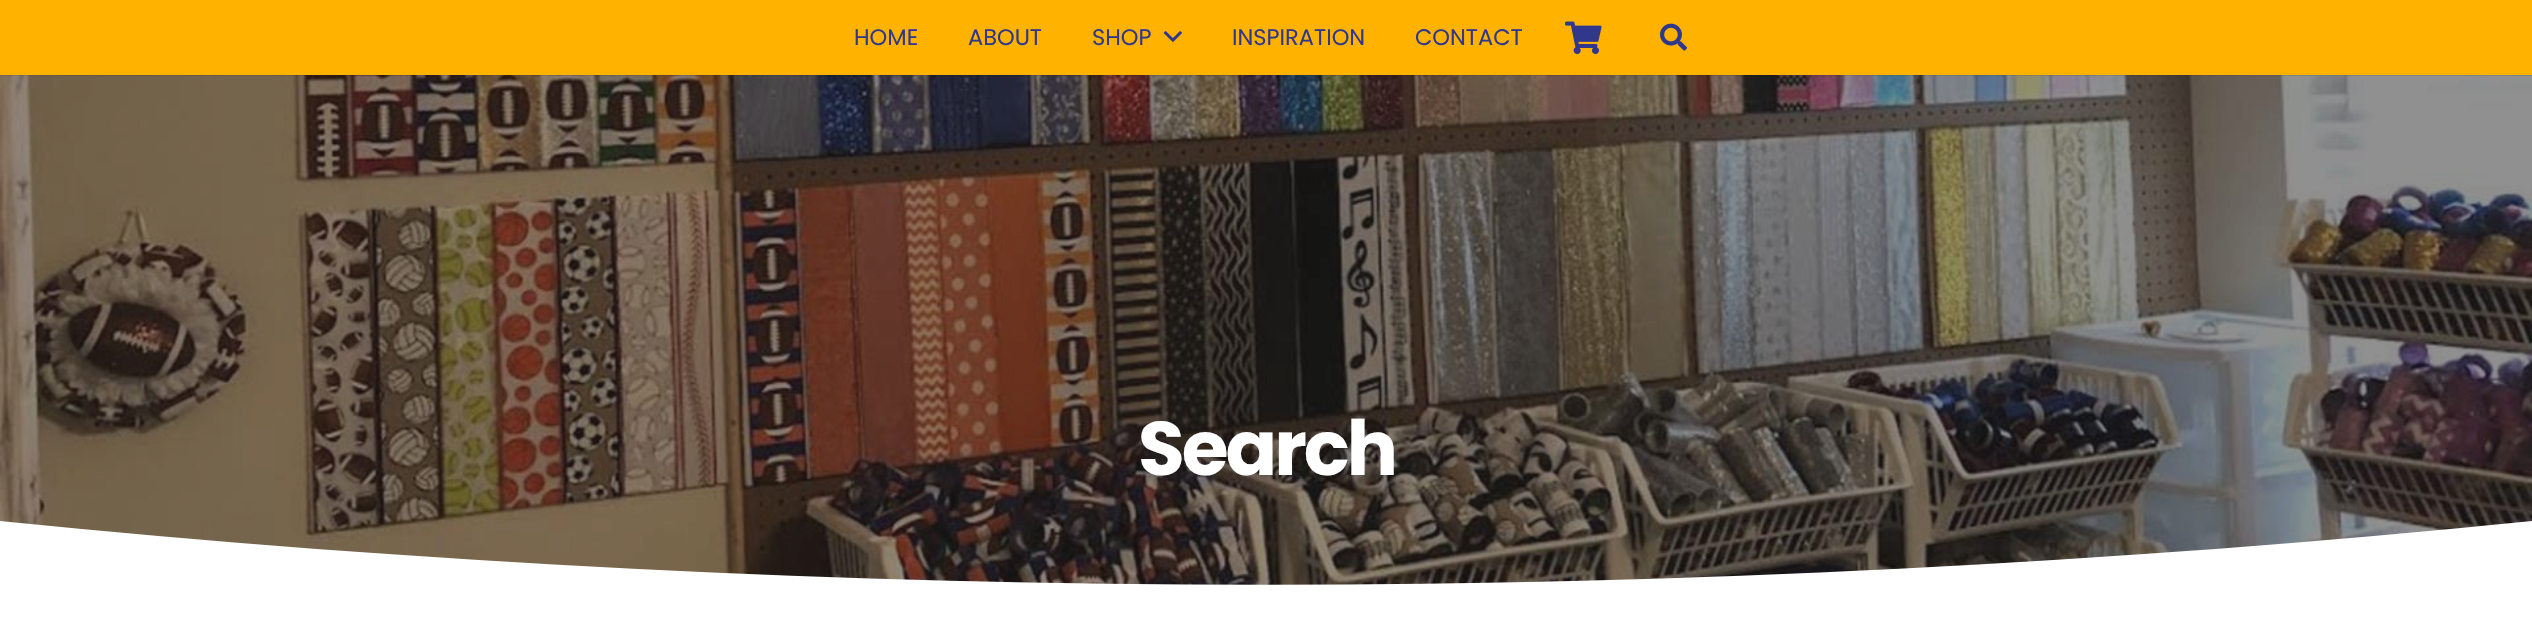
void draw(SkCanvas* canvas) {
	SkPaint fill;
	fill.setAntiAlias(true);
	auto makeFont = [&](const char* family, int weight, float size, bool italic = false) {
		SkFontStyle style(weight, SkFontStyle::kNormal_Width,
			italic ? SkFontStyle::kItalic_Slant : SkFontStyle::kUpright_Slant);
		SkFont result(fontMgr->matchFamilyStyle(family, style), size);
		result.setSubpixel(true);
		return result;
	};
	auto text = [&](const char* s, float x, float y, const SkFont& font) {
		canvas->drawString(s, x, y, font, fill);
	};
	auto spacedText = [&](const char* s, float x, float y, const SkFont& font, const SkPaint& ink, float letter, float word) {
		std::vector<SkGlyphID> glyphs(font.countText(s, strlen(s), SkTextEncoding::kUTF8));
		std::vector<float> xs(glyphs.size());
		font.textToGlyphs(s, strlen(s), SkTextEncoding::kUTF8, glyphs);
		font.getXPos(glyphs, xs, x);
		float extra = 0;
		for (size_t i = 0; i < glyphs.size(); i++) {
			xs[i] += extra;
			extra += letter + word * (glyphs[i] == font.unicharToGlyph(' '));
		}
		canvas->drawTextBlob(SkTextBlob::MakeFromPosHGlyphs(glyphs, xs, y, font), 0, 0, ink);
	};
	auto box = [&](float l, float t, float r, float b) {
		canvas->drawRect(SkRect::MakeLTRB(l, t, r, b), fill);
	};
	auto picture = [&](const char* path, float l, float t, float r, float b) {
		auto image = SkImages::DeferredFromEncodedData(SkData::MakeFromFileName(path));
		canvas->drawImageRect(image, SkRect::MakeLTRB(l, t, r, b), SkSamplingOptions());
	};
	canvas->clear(0xFFFFFFFF);
	picture("image3.png", 0, 75, 2532, 585);
	fill.setColor(0x14000000);
	canvas->drawPath(SkPathBuilder().moveTo(0, 75).lineTo(0, 76).lineTo(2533, 76).lineTo(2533, 1).lineTo(2532, 1).lineTo(2532, 75).close().detach(), fill);
	fill.setColor(0xFFFFB300);
	box(0, 0, 2532, 75);
	picture("image0.png", 1163, 31, 1182, 42);
	picture("image1.png", 1565, 21, 1602, 54);
	picture("image2.png", 1660, 23, 1687, 51);
	fill.setColor(0xFFFFFFFF);
	canvas->drawPath(SkPathBuilder().moveTo(2532, 586).lineTo(2532, 521).cubicTo(1688, 606, 844, 606, 0, 521).lineTo(0, 586).close().detach(), fill);
	auto font1 = makeFont("Poppins", 400, 22.5f);
	fill.setColor(0xFF31388C);
	text("HOME", 854, 45, font1);
	text("ABOUT", 968, 45, font1);
	text("SHOP", 1092, 45, font1);
	text("INSPIRATION", 1232, 45, font1);
	text("CONTACT", 1415, 45, font1);
	auto font2 = makeFont("Poppins", 700, 76);
	fill.setColor(0xFFFFFFFF);
	spacedText("Search", 1138, 475, font2, fill, -3, 0);
}
